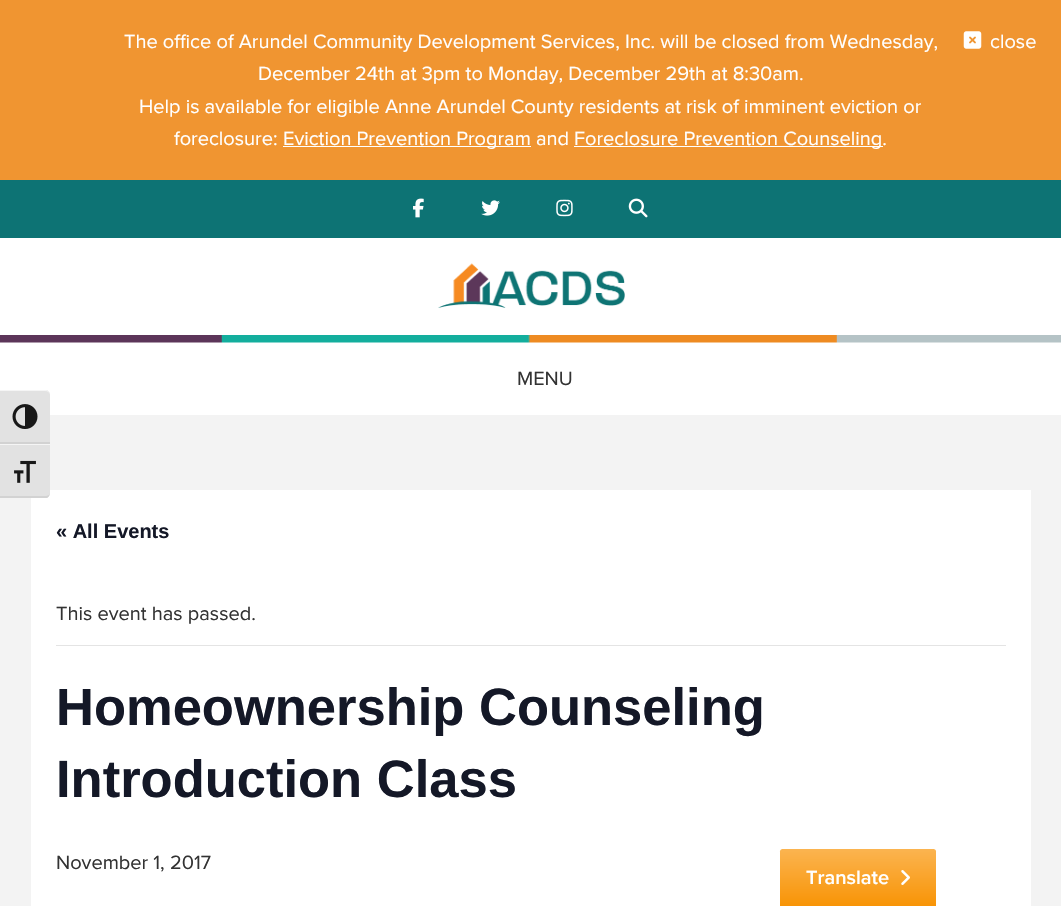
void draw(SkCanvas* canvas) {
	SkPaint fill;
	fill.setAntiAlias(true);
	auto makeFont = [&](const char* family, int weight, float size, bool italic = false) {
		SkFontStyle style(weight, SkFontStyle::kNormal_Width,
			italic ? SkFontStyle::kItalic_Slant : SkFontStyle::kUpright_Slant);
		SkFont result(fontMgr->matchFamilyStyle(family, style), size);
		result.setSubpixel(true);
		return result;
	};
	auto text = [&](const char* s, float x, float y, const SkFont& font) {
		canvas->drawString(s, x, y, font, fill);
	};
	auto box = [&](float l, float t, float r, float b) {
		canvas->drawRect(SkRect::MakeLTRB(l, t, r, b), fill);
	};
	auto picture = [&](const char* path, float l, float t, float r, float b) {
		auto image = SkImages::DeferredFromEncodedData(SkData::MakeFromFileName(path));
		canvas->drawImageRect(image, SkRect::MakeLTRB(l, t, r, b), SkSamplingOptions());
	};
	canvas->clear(0xFFF3F3F3);
	fill.setColor(0xFFF09531);
	box(0, 0, 1061, 180);
	fill.setColor(0xFFFFFFFF);
	box(283, 146, 531, 147);
	box(574, 146, 883, 147);
	picture("image0.png", 963, 31, 982, 49);
	box(0, 238, 1061, 415);
	fill.setColor(0xFFE2E2E2);
	canvas->drawPath(SkPathBuilder().moveTo(0, 390).lineTo(45, 390).cubicTo(48, 390, 50, 392, 50, 395).lineTo(50, 444).lineTo(0, 444).close().detach(), fill);
	fill.setColor(0xFFF5F5F5);
	canvas->drawPath(SkPathBuilder().moveTo(0, 390).lineTo(0, 391).lineTo(45, 391).cubicTo(48, 391, 50, 393, 50, 395).cubicTo(50, 392, 48, 390, 45, 390).close().detach(), fill);
	fill.setColor(0xFFD2D2D2);
	box(0, 442, 50, 444);
	picture("image1.png", 12, 404, 38, 429);
	fill.setColor(0xFFFFFFFF);
	box(31, 490, 1031, 906);
	fill.setColor(0xFFE2E2E2);
	canvas->drawPath(SkPathBuilder().moveTo(0, 444).lineTo(50, 444).lineTo(50, 493).cubicTo(50, 496, 48, 498, 45, 498).lineTo(0, 498).close().detach(), fill);
	fill.setColor(0xFFF5F5F5);
	box(0, 444, 50, 445);
	fill.setColor(0xFFD2D2D2);
	canvas->drawPath(SkPathBuilder().moveTo(47, 498).cubicTo(49, 497, 50, 494, 50, 492).cubicTo(50, 495, 48, 496, 45, 496).lineTo(0, 496).lineTo(0, 498).close().detach(), fill);
	picture("image2.png", 14, 460, 36, 483);
	fill.setColor(0xFF0D7374);
	box(0, 180, 1061, 238);
	picture("image3.png", 413, 198, 424, 218);
	picture("image4.png", 481, 200, 500, 216);
	picture("image5.png", 556, 199, 573, 217);
	picture("image6.png", 628, 198, 648, 218);
	picture("image7.png", 0, 335, 1061, 343);
	picture("image8.png", 438, 263, 625, 308);
	fill.setColor(0xFFE4E4E4);
	box(56, 645, 1006, 646);
	{
		const SkColor colors[] = {0xFFFBB450, 0xFFF89406};
		const float stops[] = {0, 1};
		const SkPoint ends[] = {{858, 849}, {858, 906}};
		fill.setShader(SkGradientShader::MakeLinear(ends, colors, stops, 2, SkTileMode::kClamp));
		fill.setAlpha(255);
	}
	canvas->drawPath(SkPathBuilder().moveTo(782.5f, 849).lineTo(933.5f, 849).cubicTo(935, 849, 936, 850, 936, 851.5f).lineTo(936, 906).lineTo(780, 906).lineTo(780, 851.5f).cubicTo(780, 850, 781, 849, 782.5f, 849).close().detach(), fill);
	picture("image9.png", 901, 870, 910, 885);
	auto font1 = makeFont("Proxima Nova", 400, 20);
	fill.setShader(nullptr);
	fill.setColor(0xFFFFFFFF);
	text("The office of Arundel Community Development Services, Inc. will be closed from Wednesday,", 124, 48, font1);
	text("December 24th at 3pm to Monday, December 29th at 8:30am.", 258, 80, font1);
	text("Help is available for eligible Anne Arundel County residents at risk of imminent eviction or", 139, 113, font1);
	text("foreclosure:", 174, 145, font1);
	text("Eviction Prevention Program and", 283, 145, font1);
	text("Foreclosure Prevention Counseling.", 574, 145, font1);
	text("close", 990, 48, font1);
	fill.setColor(0xFF333333);
	text("MENU", 517, 385, font1);
	auto font2 = makeFont("Liberation Sans", 700, 20);
	fill.setColor(0xFF141827);
	text("« All Events", 56, 538, font2);
	fill.setColor(0xFF333333);
	text("This event has passed.", 56, 620, font1);
	auto font3 = makeFont("Liberation Sans", 700, 52.5f);
	fill.setColor(0xFF141827);
	text("Homeownership Counseling", 56, 725, font3);
	text("Introduction Class", 56, 797, font3);
	fill.setColor(0xFF333333);
	text("November 1, 2017", 56, 869, font1);
	auto font4 = makeFont("Proxima Nova", 600, 20);
	fill.setColor(0xFFFFFFFF);
	text("Translate", 806, 884, font4);
}
